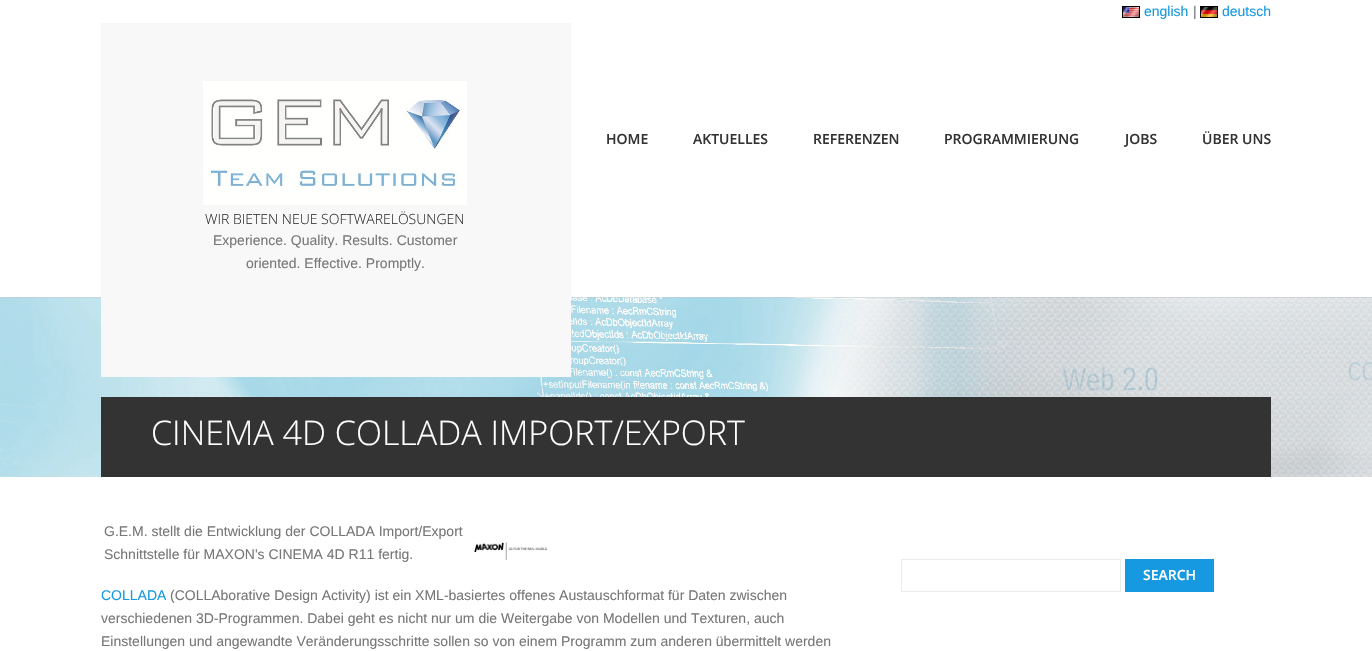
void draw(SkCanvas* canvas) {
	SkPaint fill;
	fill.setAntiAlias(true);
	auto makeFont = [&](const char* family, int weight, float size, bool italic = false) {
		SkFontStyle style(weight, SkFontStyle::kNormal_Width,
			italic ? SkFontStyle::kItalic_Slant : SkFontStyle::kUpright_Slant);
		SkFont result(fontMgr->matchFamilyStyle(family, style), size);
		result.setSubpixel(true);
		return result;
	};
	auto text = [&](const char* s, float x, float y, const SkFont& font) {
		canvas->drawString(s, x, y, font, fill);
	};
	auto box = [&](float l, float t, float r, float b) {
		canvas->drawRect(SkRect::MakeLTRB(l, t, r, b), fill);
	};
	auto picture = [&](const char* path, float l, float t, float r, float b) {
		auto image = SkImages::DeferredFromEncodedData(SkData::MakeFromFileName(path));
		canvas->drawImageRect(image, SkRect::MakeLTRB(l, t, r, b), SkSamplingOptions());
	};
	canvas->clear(0xFFFFFFFF);
	picture("image0.png", 1122, 6, 1140, 18);
	picture("image1.png", 1200, 6, 1218, 18);
	picture("image3.png", 0, 297, 1372, 477);
	fill.setColor(0xFFF8F8F8);
	box(101, 23, 571, 377);
	picture("image2.png", 203, 81, 467, 205);
	fill.setColor(0xFF333333);
	box(101, 397, 1271, 477);
	picture("image4.png", 474, 542, 547, 560);
	fill.setStyle(SkPaint::kStroke_Style);
	fill.setStrokeWidth(1);
	fill.setColor(0xFFECECEC);
	canvas->drawRect(SkRect::MakeLTRB(901.5f, 559.5f, 1120.5f, 591.5f), fill);
	fill.setStyle(SkPaint::kFill_Style);
	fill.setColor(0xFF1699E0);
	box(1125, 559, 1214, 592);
	auto font1 = makeFont("Liberation Sans", 400, 14);
	text("english", 1144, 16, font1);
	fill.setColor(0xFF777777);
	text("|", 1193, 16, font1);
	fill.setColor(0xFF1699E0);
	text("deutsch", 1222, 16, font1);
	auto font2 = makeFont("Open Sans", 600, 14);
	fill.setColor(0xFF333333);
	text("HOME", 606, 144, font2);
	text("AKTUELLES", 693, 144, font2);
	text("REFERENZEN", 813, 144, font2);
	text("PROGRAMMIERUNG", 944, 144, font2);
	text("JOBS", 1125, 144, font2);
	text("ÜBER UNS", 1202, 144, font2);
	auto font3 = makeFont("Open Sans", 300, 14);
	text("WIR BIETEN NEUE SOFTWARELÖSUNGEN", 205, 224, font3);
	fill.setColor(0xFF777777);
	text("Experience. Quality. Results. Customer", 213, 245, font1);
	text("oriented. Effective. Promptly.", 246, 268, font1);
	auto font4 = makeFont("Open Sans", 300, 34);
	fill.setColor(0xFFFFFFFF);
	text("CINEMA 4D COLLADA IMPORT/EXPORT", 151, 445, font4);
	fill.setColor(0xFF777777);
	text("G.E.M. stellt die Entwicklung der COLLADA Import/Export", 104, 536, font1);
	text("Schnittstelle für MAXON's CINEMA 4D R11 fertig.", 104, 559, font1);
	fill.setColor(0xFF1699E0);
	text("COLLADA", 101, 600, font1);
	fill.setColor(0xFF777777);
	text("(COLLAborative Design Activity) ist ein XML-basiertes offenes Austauschformat für Daten zwischen", 170, 600, font1);
	text("verschiedenen 3D-Programmen. Dabei geht es nicht nur um die Weitergabe von Modellen und Texturen, auch", 101, 623, font1);
	text("Einstellungen und angewandte Veränderungsschritte sollen so von einem Programm zum anderen übermittelt werden", 101, 646, font1);
	fill.setColor(0xFFFFFFFF);
	text("SEARCH", 1143, 580, font2);
}
